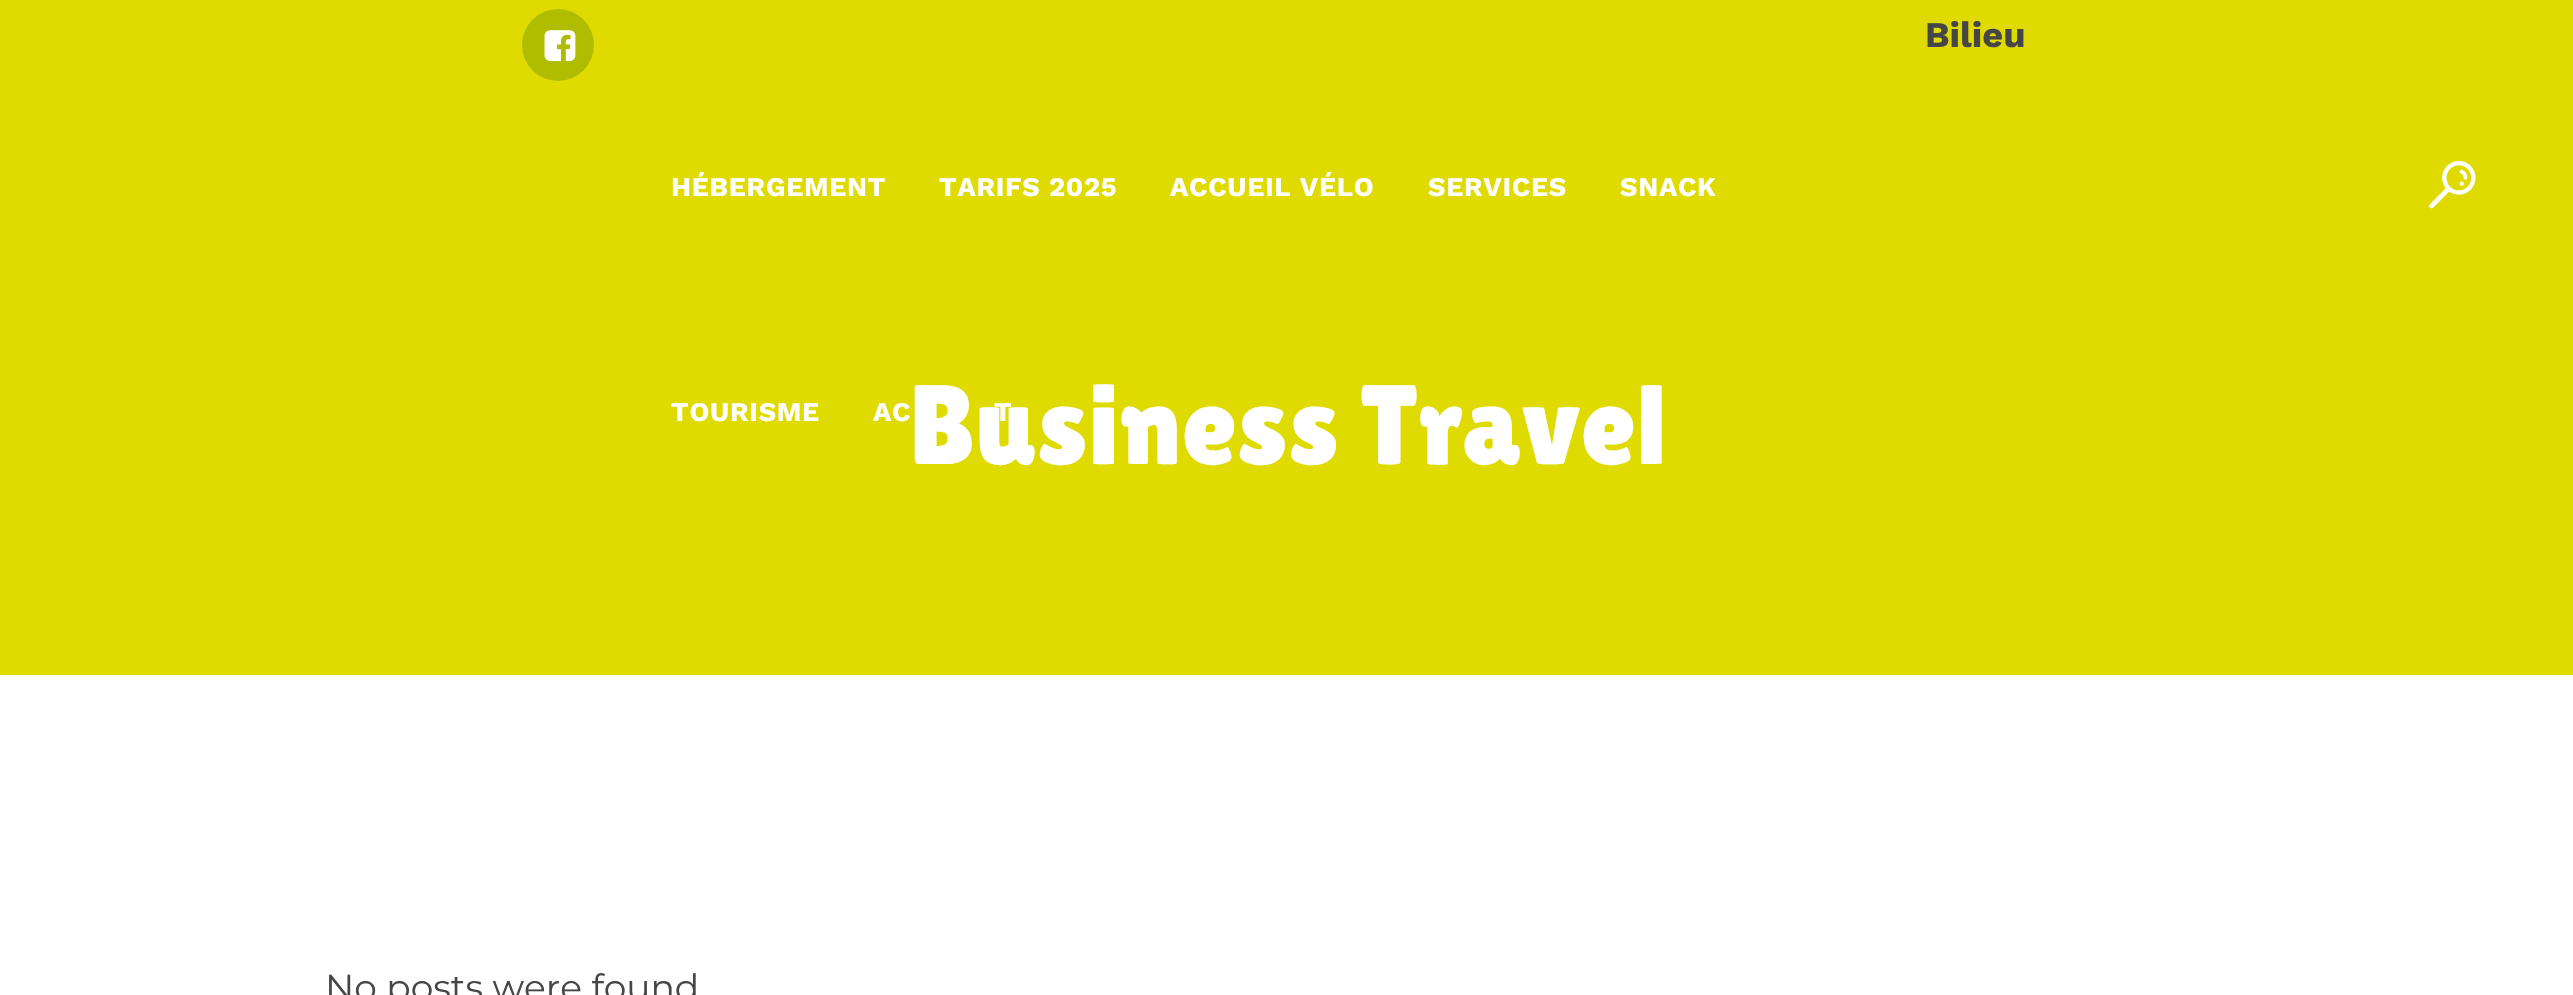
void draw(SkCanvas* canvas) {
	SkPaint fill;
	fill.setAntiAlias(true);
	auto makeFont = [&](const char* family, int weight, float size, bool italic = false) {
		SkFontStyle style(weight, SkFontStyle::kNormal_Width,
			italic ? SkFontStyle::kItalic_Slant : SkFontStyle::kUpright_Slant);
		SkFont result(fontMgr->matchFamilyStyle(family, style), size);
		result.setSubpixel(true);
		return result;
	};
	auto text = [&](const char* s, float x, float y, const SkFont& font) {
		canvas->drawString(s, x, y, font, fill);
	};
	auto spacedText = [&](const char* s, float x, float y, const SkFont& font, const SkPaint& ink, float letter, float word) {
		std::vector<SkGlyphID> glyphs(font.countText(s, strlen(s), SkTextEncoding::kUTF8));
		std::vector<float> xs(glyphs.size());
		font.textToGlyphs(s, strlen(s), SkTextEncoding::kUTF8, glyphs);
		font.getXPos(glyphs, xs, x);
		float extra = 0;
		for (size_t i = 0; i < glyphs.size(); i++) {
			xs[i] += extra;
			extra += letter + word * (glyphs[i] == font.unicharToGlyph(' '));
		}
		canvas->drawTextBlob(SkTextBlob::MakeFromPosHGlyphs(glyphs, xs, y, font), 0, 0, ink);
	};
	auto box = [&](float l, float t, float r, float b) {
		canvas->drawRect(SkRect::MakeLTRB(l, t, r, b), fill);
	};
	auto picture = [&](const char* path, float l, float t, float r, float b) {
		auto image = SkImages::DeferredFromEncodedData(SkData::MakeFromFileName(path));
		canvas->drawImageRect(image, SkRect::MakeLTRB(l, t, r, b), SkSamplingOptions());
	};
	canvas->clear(0xFFFFFFFF);
	fill.setColor(0xFFDFDB00);
	box(0, 0, 2573, 675);
	fill.setColor(0xFFB0BC00);
	canvas->drawCircle(558, 45, 36, fill);
	picture("image0.png", 544, 30, 576, 62);
	picture("image1.png", 2429, 160, 2476, 209);
	auto font1 = makeFont("Work Sans", 700, 36);
	fill.setColor(0xFF464646);
	text("Bilieu", 1925, 47, font1);
	auto font2 = makeFont("Work Sans", 700, 27);
	fill.setColor(0xFFFFFFFF);
	spacedText("HÉBERGEMENT", 671, 196, font2, fill, 0.75f, 0);
	spacedText("TARIFS 2025", 939, 196, font2, fill, 0.75f, 0);
	spacedText("ACCUEIL VÉLO", 1170, 196, font2, fill, 0.75f, 0);
	spacedText("SERVICES", 1428, 196, font2, fill, 0.75f, 0);
	spacedText("SNACK", 1620, 196, font2, fill, 0.75f, 0);
	spacedText("TOURISME", 671, 421, font2, fill, 0.75f, 0);
	spacedText("AC", 873, 421, font2, fill, 0.75f, 0);
	auto font3 = makeFont("Lilita One", 400, 112.5f);
	spacedText("Business Travel", 908, 464, font3, fill, 0.5f, 0);
	spacedText("T", 994, 421, font2, fill, 0.75f, 0);
	auto font4 = makeFont("Montserrat", 400, 36);
	fill.setColor(0xFF464646);
	text("No posts were found", 325, 1000, font4);
}
